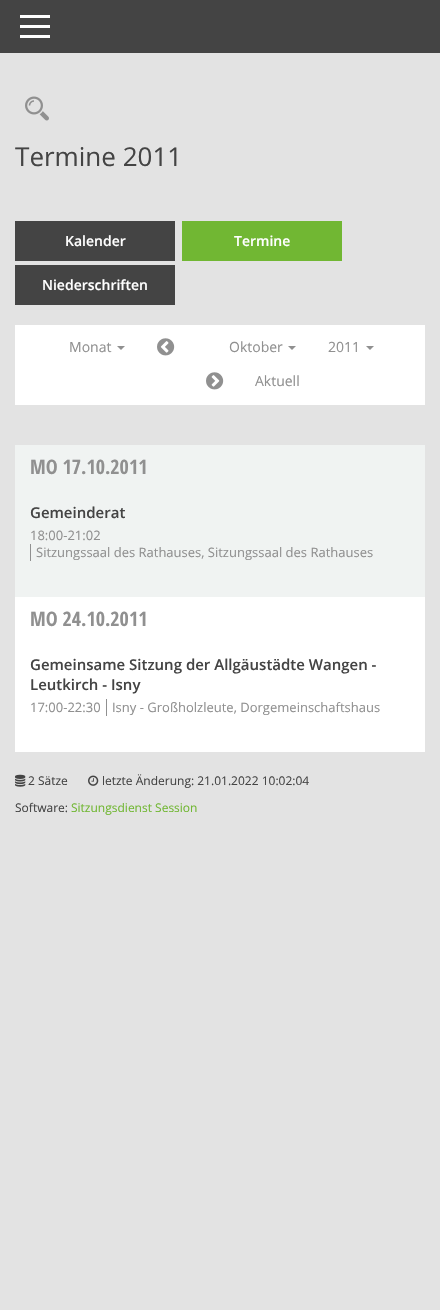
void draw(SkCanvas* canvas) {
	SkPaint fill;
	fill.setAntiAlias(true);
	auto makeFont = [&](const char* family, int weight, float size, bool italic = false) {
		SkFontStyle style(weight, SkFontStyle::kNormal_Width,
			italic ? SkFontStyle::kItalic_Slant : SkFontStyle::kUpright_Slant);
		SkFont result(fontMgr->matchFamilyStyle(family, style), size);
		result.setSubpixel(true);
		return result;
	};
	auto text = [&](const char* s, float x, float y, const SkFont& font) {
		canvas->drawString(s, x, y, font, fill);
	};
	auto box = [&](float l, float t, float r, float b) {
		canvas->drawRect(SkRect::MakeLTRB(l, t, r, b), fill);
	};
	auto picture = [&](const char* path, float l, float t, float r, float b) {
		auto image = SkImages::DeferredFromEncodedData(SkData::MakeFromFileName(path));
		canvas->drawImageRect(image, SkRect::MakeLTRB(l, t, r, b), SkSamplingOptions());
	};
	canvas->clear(0xFFE3E3E3);
	fill.setColor(0xFF444444);
	box(0, 0, 440, 53);
	fill.setColor(0xFFFFFFFF);
	box(20, 15, 50, 18);
	box(20, 25, 50, 28);
	box(20, 35, 50, 38);
	picture("image0.png", 25, 96, 49, 121);
	fill.setColor(0xFF444444);
	box(15, 221, 175, 261);
	fill.setColor(0xFF71B733);
	box(182, 221, 342, 261);
	fill.setColor(0xFF444444);
	box(15, 265, 175, 305);
	fill.setColor(0xFFFFFFFF);
	box(15, 325, 425, 405);
	fill.setColor(0xFF909090);
	canvas->drawPath(SkPathBuilder().moveTo(117, 346).lineTo(125, 346).lineTo(121, 350).close().detach(), fill);
	picture("image1.png", 157, 338, 175, 356);
	canvas->drawPath(SkPathBuilder().moveTo(288, 346).lineTo(296, 346).lineTo(292, 350).close().detach(), fill);
	canvas->drawPath(SkPathBuilder().moveTo(366, 346).lineTo(374, 346).lineTo(370, 350).close().detach(), fill);
	picture("image2.png", 206, 372, 224, 390);
	fill.setColor(0xFFFFFFFF);
	box(15, 597, 425, 752);
	fill.setColor(0xFFF0F3F2);
	box(15, 445, 425, 597);
	fill.setColor(0xFF909090);
	box(30, 544, 31, 561);
	box(106, 699, 107, 716);
	picture("image3.png", 15, 774, 26, 787);
	picture("image4.png", 88, 775, 99, 786);
	auto font1 = makeFont("Open Sans", 400, 26);
	fill.setColor(0xFF444444);
	text("Termine 2011", 15, 166, font1);
	auto font2 = makeFont("Open Sans", 600, 14);
	fill.setColor(0xFFFFFFFF);
	text("Kalender", 65, 246, font2);
	text("Termine", 234, 246, font2);
	text("Niederschriften", 42, 290, font2);
	auto font3 = makeFont("Open Sans", 400, 14);
	fill.setColor(0xFF909090);
	text("Monat", 69, 352, font3);
	text("Oktober", 229, 352, font3);
	text("2011", 328, 352, font3);
	text("Aktuell", 255, 386, font3);
	auto font4 = makeFont("Open Sans Condensed", 700, 20);
	text("MO 17.10.2011", 30, 474, font4);
	auto font5 = makeFont("Open Sans", 600, 15);
	fill.setColor(0xFF444444);
	text("Gemeinderat", 30, 518, font5);
	auto font6 = makeFont("Open Sans", 400, 13);
	fill.setColor(0xFF909090);
	text("18:00-21:02", 30, 540, font6);
	text("Sitzungssaal des Rathauses, Sitzungssaal des Rathauses", 36, 557, font6);
	text("MO 24.10.2011", 30, 626, font4);
	fill.setColor(0xFF444444);
	text("Gemeinsame Sitzung der Allgäustädte Wangen -", 30, 670, font5);
	text("Leutkirch - Isny", 30, 690, font5);
	fill.setColor(0xFF909090);
	text("17:00-22:30", 30, 712, font6);
	text("Isny - Großholzleute, Dorgemeinschaftshaus", 112, 712, font6);
	auto font7 = makeFont("Open Sans", 400, 12);
	fill.setColor(0xFF444444);
	text("2 Sätze", 28, 785, font7);
	text("letzte Änderung: 21.01.2022 10:02:04", 102, 785, font7);
	text("Software:", 15, 812, font7);
	fill.setColor(0xFF71B733);
	text("Sitzungsdienst Session", 71, 812, font7);
}
